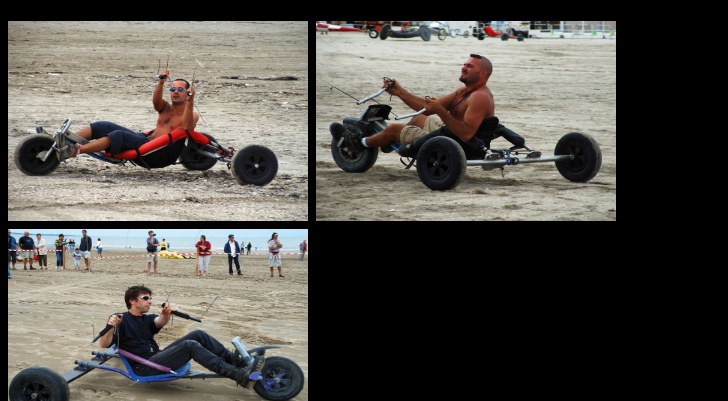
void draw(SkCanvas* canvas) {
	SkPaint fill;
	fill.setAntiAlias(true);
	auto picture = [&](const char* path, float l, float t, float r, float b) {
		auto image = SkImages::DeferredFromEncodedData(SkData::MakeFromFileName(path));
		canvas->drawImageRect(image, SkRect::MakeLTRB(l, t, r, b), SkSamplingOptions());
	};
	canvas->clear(0xFF000000);
	picture("image0.png", 8, 21, 308, 221);
	picture("image1.png", 316, 21, 616, 221);
	picture("image2.png", 8, 229, 308, 401);
}
